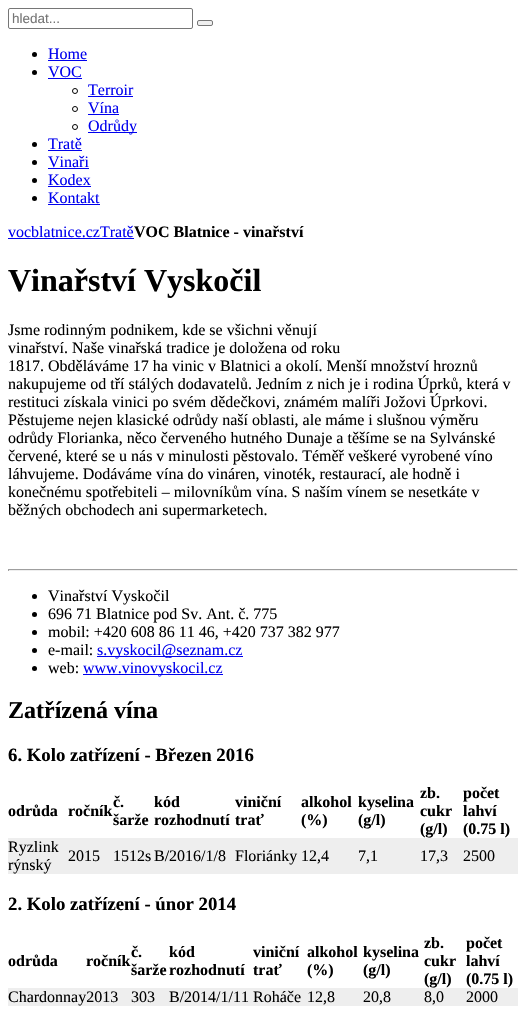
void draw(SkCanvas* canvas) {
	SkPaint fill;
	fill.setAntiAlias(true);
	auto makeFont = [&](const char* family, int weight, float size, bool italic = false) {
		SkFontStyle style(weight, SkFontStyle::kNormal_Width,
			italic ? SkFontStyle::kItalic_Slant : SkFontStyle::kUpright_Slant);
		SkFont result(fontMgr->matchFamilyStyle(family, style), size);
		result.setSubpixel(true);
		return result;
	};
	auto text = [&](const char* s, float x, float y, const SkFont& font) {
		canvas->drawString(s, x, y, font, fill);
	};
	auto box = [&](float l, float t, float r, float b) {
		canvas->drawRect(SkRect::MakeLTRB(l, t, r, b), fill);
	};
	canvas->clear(0xFFFFFFFF);
	fill.setStyle(SkPaint::kStroke_Style);
	fill.setStrokeWidth(1);
	fill.setColor(0xFF767676);
	canvas->drawRoundRect(SkRect::MakeLTRB(8.5f, 8.5f, 192.5f, 28.5f), 1.5f, 1.5f, fill);
	fill.setStyle(SkPaint::kFill_Style);
	fill.setColor(0xFFEFEFEF);
	canvas->drawRoundRect(SkRect::MakeLTRB(197.5f, 20.5f, 212.5f, 25.5f), 1.5f, 1.5f, fill);
	fill.setStyle(SkPaint::kStroke_Style);
	fill.setColor(0xFF767676);
	canvas->drawRoundRect(SkRect::MakeLTRB(197.5f, 20.5f, 212.5f, 25.5f), 1.5f, 1.5f, fill);
	fill.setStyle(SkPaint::kFill_Style);
	fill.setColor(0xFF000000);
	canvas->drawCircle(34.5f, 54.5f, 2.5f, fill);
	fill.setColor(0xFF0000EE);
	box(48, 60, 87, 61);
	fill.setColor(0xFF000000);
	canvas->drawCircle(34.5f, 72.5f, 2.5f, fill);
	fill.setColor(0xFF0000EE);
	box(48, 78, 82, 79);
	fill.setStyle(SkPaint::kStroke_Style);
	fill.setColor(0xFF000000);
	canvas->drawCircle(75, 91, 2.5f, fill);
	fill.setStyle(SkPaint::kFill_Style);
	fill.setColor(0xFF0000EE);
	box(88, 96, 133, 97);
	fill.setStyle(SkPaint::kStroke_Style);
	fill.setColor(0xFF000000);
	canvas->drawCircle(75, 109, 2.5f, fill);
	fill.setStyle(SkPaint::kFill_Style);
	fill.setColor(0xFF0000EE);
	box(88, 114, 119, 115);
	fill.setStyle(SkPaint::kStroke_Style);
	fill.setColor(0xFF000000);
	canvas->drawCircle(75, 127, 2.5f, fill);
	fill.setStyle(SkPaint::kFill_Style);
	fill.setColor(0xFF0000EE);
	box(88, 132, 137, 133);
	fill.setColor(0xFF000000);
	canvas->drawCircle(34.5f, 144.5f, 2.5f, fill);
	fill.setColor(0xFF0000EE);
	box(48, 150, 82, 151);
	fill.setColor(0xFF000000);
	canvas->drawCircle(34.5f, 162.5f, 2.5f, fill);
	fill.setColor(0xFF0000EE);
	box(48, 168, 89, 169);
	fill.setColor(0xFF000000);
	canvas->drawCircle(34.5f, 180.5f, 2.5f, fill);
	fill.setColor(0xFF0000EE);
	box(48, 186, 91, 187);
	fill.setColor(0xFF000000);
	canvas->drawCircle(34.5f, 198.5f, 2.5f, fill);
	fill.setColor(0xFF0000EE);
	box(48, 204, 100, 205);
	box(8, 238, 134, 239);
	fill.setColor(0xFF9F9F9F);
	box(8, 569, 518, 570);
	fill.setColor(0xFFEEEEEE);
	box(517, 569, 518, 571);
	box(8, 570, 518, 571);
	fill.setColor(0xFF9F9F9F);
	box(8, 569, 9, 571);
	fill.setColor(0xFF000000);
	canvas->drawCircle(34.5f, 596.5f, 2.5f, fill);
	canvas->drawCircle(34.5f, 614.5f, 2.5f, fill);
	canvas->drawCircle(34.5f, 632.5f, 2.5f, fill);
	canvas->drawCircle(34.5f, 650.5f, 2.5f, fill);
	fill.setColor(0xFF0000EE);
	box(97, 656, 243, 657);
	fill.setColor(0xFF000000);
	canvas->drawCircle(34.5f, 668.5f, 2.5f, fill);
	fill.setColor(0xFF0000EE);
	box(83, 674, 223, 675);
	fill.setColor(0xFFEEEEEE);
	box(8, 838, 518, 874);
	box(8, 988, 518, 1006);
	auto font1 = makeFont("Liberation Sans", 400, 13.5f);
	fill.setColor(0xFF757575);
	text("hledat...", 12, 23, font1);
	auto font2 = makeFont("Liberation Serif", 400, 16);
	fill.setColor(0xFF0000EE);
	text("Home", 48, 59, font2);
	text("VOC", 48, 77, font2);
	text("Terroir", 88, 95, font2);
	text("Vína", 88, 113, font2);
	text("Odrůdy", 88, 131, font2);
	text("Tratě", 48, 149, font2);
	text("Vinaři", 48, 167, font2);
	text("Kodex", 48, 185, font2);
	text("Kontakt", 48, 203, font2);
	text("vocblatnice.czTratě", 8, 237, font2);
	auto font3 = makeFont("Liberation Serif", 700, 16);
	fill.setColor(0xFF000000);
	text("VOC Blatnice - vinařství", 134, 237, font3);
	auto font4 = makeFont("Liberation Serif", 700, 32);
	text("Vinařství Vyskočil", 8, 291, font4);
	text("Jsme rodinným podnikem, kde se všichni věnují", 8, 335, font2);
	text("vinařství. Naše vinařská tradice je doložena od roku", 8, 353, font2);
	text("1817. Obděláváme 17 ha vinic v Blatnici a okolí. Menší množství hroznů", 8, 371, font2);
	text("nakupujeme od tří stálých dodavatelů. Jedním z nich je i rodina Úprků, která v", 8, 389, font2);
	text("restituci získala vinici po svém dědečkovi, známém malíři Jožovi Úprkovi.", 8, 407, font2);
	text("Pěstujeme nejen klasické odrůdy naší oblasti, ale máme i slušnou výměru", 8, 425, font2);
	text("odrůdy Florianka, něco červeného hutného Dunaje a těšíme se na Sylvánské", 8, 443, font2);
	text("červené, které se u nás v minulosti pěstovalo. Téměř veškeré vyrobené víno", 8, 461, font2);
	text("láhvujeme. Dodáváme vína do vináren, vinoték, restaurací, ale hodně i", 8, 479, font2);
	text("konečnému spotřebiteli – milovníkům vína. S naším vínem se nesetkáte v", 8, 497, font2);
	text("běžných obchodech ani supermarketech.", 8, 515, font2);
	text("Vinařství Vyskočil", 48, 601, font2);
	text("696 71 Blatnice pod Sv. Ant. č. 775", 48, 619, font2);
	text("mobil: +420 608 86 11 46, +420 737 382 977", 48, 637, font2);
	text("e-mail:", 48, 655, font2);
	fill.setColor(0xFF0000EE);
	text("s.vyskocil@seznam.cz", 97, 655, font2);
	fill.setColor(0xFF000000);
	text("web:", 48, 673, font2);
	fill.setColor(0xFF0000EE);
	text("www.vinovyskocil.cz", 83, 673, font2);
	auto font5 = makeFont("Liberation Serif", 700, 24);
	fill.setColor(0xFF000000);
	text("Zatřízená vína", 8, 718, font5);
	auto font6 = makeFont("Liberation Serif", 700, 18.75f);
	text("6. Kolo zatřízení - Březen 2016", 8, 761, font6);
	text("odrůda", 8, 816, font3);
	text("ročník", 68, 816, font3);
	text("č.", 113, 807, font3);
	text("šarže", 113, 825, font3);
	text("kód", 154, 807, font3);
	text("rozhodnutí", 154, 825, font3);
	text("viniční", 235, 807, font3);
	text("trať", 235, 825, font3);
	text("alkohol", 301, 807, font3);
	text("(%)", 301, 825, font3);
	text("kyselina", 358, 807, font3);
	text("(g/l)", 358, 825, font3);
	text("zb.", 420, 798, font3);
	text("cukr", 420, 816, font3);
	text("(g/l)", 420, 834, font3);
	text("počet", 463, 798, font3);
	text("lahví", 463, 816, font3);
	text("(0.75 l)", 463, 834, font3);
	text("Ryzlink", 8, 852, font2);
	text("rýnský", 8, 870, font2);
	text("2015", 68, 861, font2);
	text("1512s", 113, 861, font2);
	text("B/2016/1/8", 154, 861, font2);
	text("Floriánky", 235, 861, font2);
	text("12,4", 301, 861, font2);
	text("7,1", 358, 861, font2);
	text("17,3", 420, 861, font2);
	text("2500", 463, 861, font2);
	text("2. Kolo zatřízení - únor 2014", 8, 910, font6);
	text("odrůda", 8, 966, font3);
	text("ročník", 86, 966, font3);
	text("č.", 131, 957, font3);
	text("šarže", 131, 975, font3);
	text("kód", 169, 957, font3);
	text("rozhodnutí", 169, 975, font3);
	text("viniční", 253, 957, font3);
	text("trať", 253, 975, font3);
	text("alkohol", 307, 957, font3);
	text("(%)", 307, 975, font3);
	text("kyselina", 363, 957, font3);
	text("(g/l)", 363, 975, font3);
	text("zb.", 424, 948, font3);
	text("cukr", 424, 966, font3);
	text("(g/l)", 424, 984, font3);
	text("počet", 466, 948, font3);
	text("lahví", 466, 966, font3);
	text("(0.75 l)", 466, 984, font3);
	text("Chardonnay2013", 8, 1002, font2);
	text("303", 131, 1002, font2);
	text("B/2014/1/11", 169, 1002, font2);
	text("Roháče", 253, 1002, font2);
	text("12,8", 307, 1002, font2);
	text("20,8", 363, 1002, font2);
	text("8,0", 424, 1002, font2);
	text("2000", 466, 1002, font2);
}
